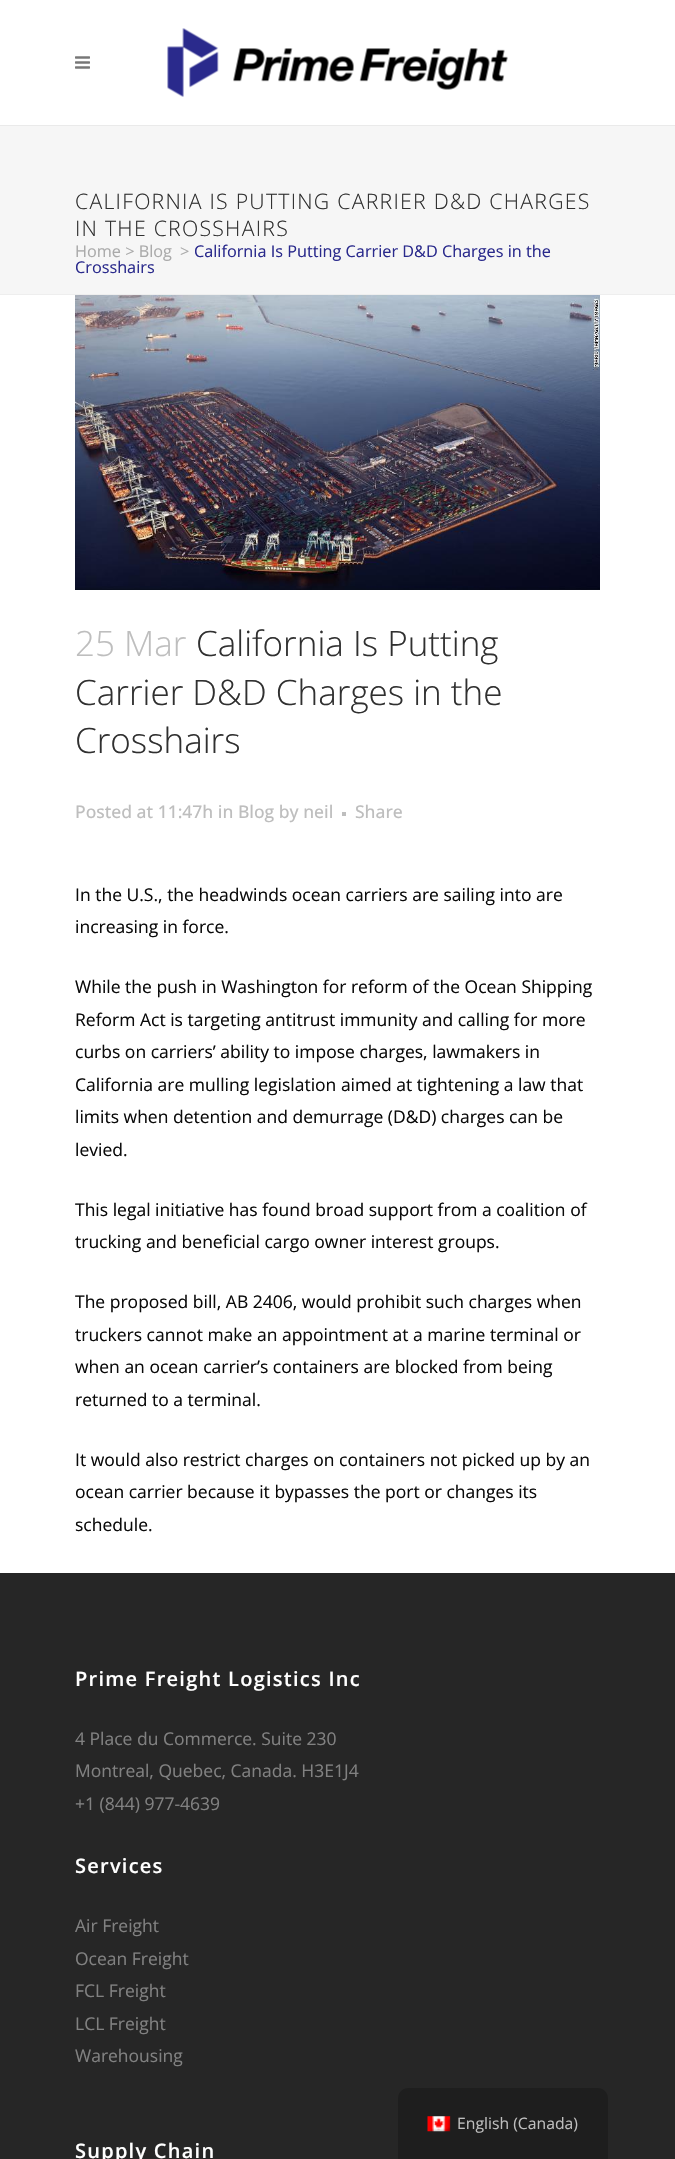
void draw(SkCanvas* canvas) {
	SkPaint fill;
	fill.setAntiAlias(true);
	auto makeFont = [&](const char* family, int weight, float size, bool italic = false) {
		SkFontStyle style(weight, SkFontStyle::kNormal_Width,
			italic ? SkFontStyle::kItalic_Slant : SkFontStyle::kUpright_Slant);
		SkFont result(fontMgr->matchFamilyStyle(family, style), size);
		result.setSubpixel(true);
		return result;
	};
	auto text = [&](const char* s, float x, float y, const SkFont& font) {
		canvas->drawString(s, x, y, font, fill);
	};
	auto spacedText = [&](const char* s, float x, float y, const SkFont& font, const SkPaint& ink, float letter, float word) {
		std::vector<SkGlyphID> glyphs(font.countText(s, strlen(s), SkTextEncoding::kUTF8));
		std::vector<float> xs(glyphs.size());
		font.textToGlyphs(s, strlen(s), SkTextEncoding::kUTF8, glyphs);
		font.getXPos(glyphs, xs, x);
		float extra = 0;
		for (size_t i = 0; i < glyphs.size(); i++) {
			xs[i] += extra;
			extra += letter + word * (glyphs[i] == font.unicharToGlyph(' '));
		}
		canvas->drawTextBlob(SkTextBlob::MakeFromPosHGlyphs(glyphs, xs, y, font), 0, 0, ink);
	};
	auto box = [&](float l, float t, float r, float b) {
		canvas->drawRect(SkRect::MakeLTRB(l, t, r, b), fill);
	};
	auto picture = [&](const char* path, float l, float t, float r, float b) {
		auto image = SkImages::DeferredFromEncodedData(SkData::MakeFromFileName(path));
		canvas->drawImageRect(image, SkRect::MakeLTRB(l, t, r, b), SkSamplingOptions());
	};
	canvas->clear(0xFFFFFFFF);
	fill.setColor(0xFFEAEAEA);
	box(0, 125, 675, 126);
	picture("image0.png", 75, 56, 90, 69);
	picture("image1.png", 167, 28, 508, 97);
	fill.setColor(0xFFF6F6F6);
	box(0, 126, 675, 294);
	fill.setColor(0xFFEEEEEE);
	box(0, 294, 675, 295);
	picture("image2.png", 75, 295, 600, 590);
	fill.setColor(0xFFBEBEBE);
	box(342, 812, 346, 816);
	fill.setColor(0xFF262626);
	box(0, 1573, 675, 2159);
	fill.setColor(0xFF1E1E1E);
	canvas->drawPath(SkPathBuilder().moveTo(408, 2088).lineTo(598, 2088).cubicTo(603.5f, 2088, 608, 2092.5f, 608, 2098).lineTo(608, 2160).lineTo(398, 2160).lineTo(398, 2098).cubicTo(398, 2092.5f, 402.5f, 2088, 408, 2088).close().detach(), fill);
	picture("image3.png", 427, 2116, 451, 2132);
	auto font1 = makeFont("Open Sans", 300, 21.25f);
	fill.setColor(0xFF303030);
	spacedText("CALIFORNIA IS PUTTING CARRIER D&D CHARGES", 75, 209, font1, fill, 1.25f, 0);
	spacedText("IN THE CROSSHAIRS", 75, 236, font1, fill, 1.25f, 0);
	auto font2 = makeFont("Open Sans", 400, 16.25f);
	fill.setColor(0xFFAAAAAA);
	text("Home > Blog", 75, 257, font2);
	text(">", 180, 257, font2);
	fill.setColor(0xFF2A2A8C);
	text("California Is Putting Carrier D&D Charges in the", 194, 257, font2);
	text("Crosshairs", 75, 273, font2);
	auto font3 = makeFont("Open Sans", 300, 35);
	fill.setColor(0xFFBEBEBE);
	text("25 Mar", 75, 656, font3);
	fill.setColor(0xFF303030);
	text("California Is Putting", 196, 656, font3);
	text("Carrier D&D Charges in the", 75, 705, font3);
	text("Crosshairs", 75, 753, font3);
	auto font4 = makeFont("Open Sans", 500, 17.5f);
	fill.setColor(0xFFBEBEBE);
	text("Posted at 11:47h in Blog by neil", 75, 818, font4);
	text("Share", 355, 818, font4);
	auto font5 = makeFont("Open Sans", 400, 17.5f);
	fill.setColor(0xFF0A0A0A);
	text("In the U.S., the headwinds ocean carriers are sailing into are", 75, 901, font5);
	text("increasing in force.", 75, 933, font5);
	text("While the push in Washington for reform of the Ocean Shipping", 75, 993, font5);
	text("Reform Act is targeting antitrust immunity and calling for more", 75, 1026, font5);
	text("curbs on carriers’ ability to impose charges, lawmakers in", 75, 1058, font5);
	text("California are mulling legislation aimed at tightening a law that", 75, 1091, font5);
	text("limits when detention and demurrage (D&D) charges can be", 75, 1123, font5);
	text("levied.", 75, 1156, font5);
	text("This legal initiative has found broad support from a coalition of", 75, 1216, font5);
	text("trucking and beneficial cargo owner interest groups.", 75, 1248, font5);
	text("The proposed bill, AB 2406, would prohibit such charges when", 75, 1308, font5);
	text("truckers cannot make an appointment at a marine terminal or", 75, 1341, font5);
	text("when an ocean carrier’s containers are blocked from being", 75, 1373, font5);
	text("returned to a terminal.", 75, 1406, font5);
	text("It would also restrict charges on containers not picked up by an", 75, 1466, font5);
	text("ocean carrier because it bypasses the port or changes its", 75, 1498, font5);
	text("schedule.", 75, 1531, font5);
	auto font6 = makeFont("Open Sans", 600, 20);
	fill.setColor(0xFFFFFFFF);
	spacedText("Prime Freight Logistics Inc", 75, 1686, font6, fill, 1.25f, 0);
	fill.setColor(0xFF818181);
	text("4 Place du Commerce. Suite 230", 75, 1745, font5);
	text("Montreal, Quebec, Canada. H3E1J4", 75, 1777, font5);
	text("+1 (844) 977-4639", 75, 1810, font5);
	fill.setColor(0xFFFFFFFF);
	spacedText("Services", 75, 1873, font6, fill, 1.25f, 0);
	fill.setColor(0xFF818181);
	text("Air Freight", 75, 1932, font5);
	text("Ocean Freight", 75, 1965, font5);
	text("FCL Freight", 75, 1997, font5);
	text("LCL Freight", 75, 2030, font5);
	text("Warehousing", 75, 2062, font5);
	fill.setColor(0xFFFFFFFF);
	spacedText("Supply Chain", 75, 2158, font6, fill, 1.25f, 0);
	auto font7 = makeFont("Open Sans", 400, 15.75f);
	fill.setColor(0xFFBEBEBE);
	text("English (Canada)", 457, 2129, font7);
}
